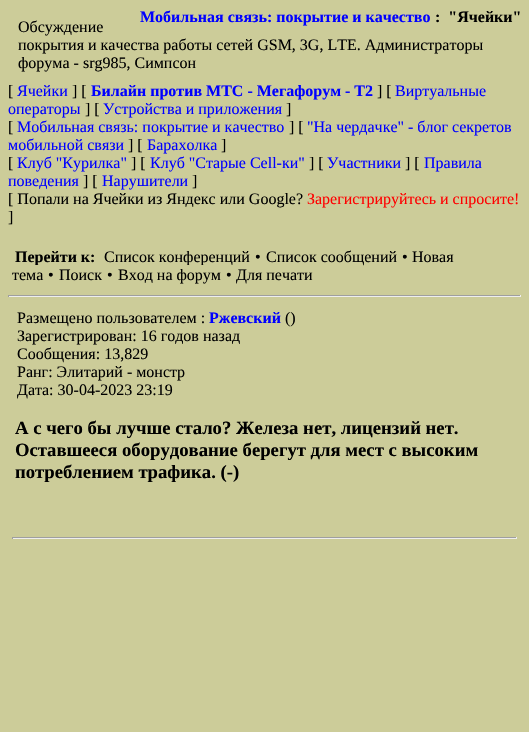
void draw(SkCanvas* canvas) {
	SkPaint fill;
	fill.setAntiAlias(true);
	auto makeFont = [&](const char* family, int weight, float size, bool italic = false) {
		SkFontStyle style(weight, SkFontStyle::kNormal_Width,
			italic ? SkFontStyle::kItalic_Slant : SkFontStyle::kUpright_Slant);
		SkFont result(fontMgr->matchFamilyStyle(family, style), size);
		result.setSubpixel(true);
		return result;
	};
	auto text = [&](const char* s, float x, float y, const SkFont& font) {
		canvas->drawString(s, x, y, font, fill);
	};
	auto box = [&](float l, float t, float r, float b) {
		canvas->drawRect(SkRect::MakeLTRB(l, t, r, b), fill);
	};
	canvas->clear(0xFFCCCC99);
	fill.setColor(0xFF9F9F9F);
	box(8, 295, 521, 296);
	fill.setColor(0xFFEEEEEE);
	box(520, 295, 521, 297);
	box(8, 296, 521, 297);
	fill.setColor(0xFF9F9F9F);
	box(8, 295, 9, 297);
	box(12, 537, 517, 538);
	fill.setColor(0xFFEEEEEE);
	box(516, 537, 517, 539);
	box(12, 538, 517, 539);
	fill.setColor(0xFF9F9F9F);
	box(12, 537, 13, 539);
	auto font1 = makeFont("Liberation Serif", 700, 16);
	fill.setColor(0xFF0000FF);
	text("Мобильная связь: покрытие и качество", 140, 22, font1);
	fill.setColor(0xFF000000);
	text(":  \"Ячейки\"", 435, 22, font1);
	auto font2 = makeFont("Liberation Serif", 400, 16);
	text("Обсуждение", 18, 32, font2);
	text("покрытия и качества работы сетей GSM, 3G, LTE. Администраторы", 18, 50, font2);
	text("форума - srg985, Симпсон", 18, 68, font2);
	text("[", 8, 96, font2);
	fill.setColor(0xFF0000FF);
	text("Ячейки", 17, 96, font2);
	fill.setColor(0xFF000000);
	text("] [", 72, 96, font2);
	fill.setColor(0xFF0000FF);
	text("Билайн против МТС - Мегафорум - T2", 91, 96, font1);
	fill.setColor(0xFF000000);
	text("] [", 377, 96, font2);
	fill.setColor(0xFF0000FF);
	text("Виртуальные", 395, 96, font2);
	text("операторы", 8, 114, font2);
	fill.setColor(0xFF000000);
	text("] [", 85, 114, font2);
	fill.setColor(0xFF0000FF);
	text("Устройства и приложения", 103, 114, font2);
	fill.setColor(0xFF000000);
	text("]", 286, 114, font2);
	text("[", 8, 132, font2);
	fill.setColor(0xFF0000FF);
	text("Мобильная связь: покрытие и качество", 17, 132, font2);
	fill.setColor(0xFF000000);
	text("] [", 289, 132, font2);
	fill.setColor(0xFF0000FF);
	text("\"На чердачке\" - блог секретов", 307, 132, font2);
	text("мобильной связи", 8, 150, font2);
	fill.setColor(0xFF000000);
	text("] [", 128, 150, font2);
	fill.setColor(0xFF0000FF);
	text("Барахолка", 147, 150, font2);
	fill.setColor(0xFF000000);
	text("]", 221, 150, font2);
	text("[", 8, 168, font2);
	fill.setColor(0xFF0000FF);
	text("Клуб \"Курилка\"", 17, 168, font2);
	fill.setColor(0xFF000000);
	text("] [", 131, 168, font2);
	fill.setColor(0xFF0000FF);
	text("Клуб \"Старые Сell-ки\"", 150, 168, font2);
	fill.setColor(0xFF000000);
	text("] [", 309, 168, font2);
	fill.setColor(0xFF0000FF);
	text("Участники", 327, 168, font2);
	fill.setColor(0xFF000000);
	text("] [", 405, 168, font2);
	fill.setColor(0xFF0000FF);
	text("Правила", 424, 168, font2);
	text("поведения", 8, 186, font2);
	fill.setColor(0xFF000000);
	text("] [", 83, 186, font2);
	fill.setColor(0xFF0000FF);
	text("Нарушители", 102, 186, font2);
	fill.setColor(0xFF000000);
	text("]", 192, 186, font2);
	text("[ Попали на Ячейки из Яндекс или Google?", 8, 204, font2);
	fill.setColor(0xFFFF0000);
	text("Зарегистрируйтесь и спросите!", 307, 204, font2);
	fill.setColor(0xFF000000);
	text("]", 8, 222, font2);
	text("Перейти к:", 15, 262, font1);
	text("Список конференций", 104, 262, font2);
	text("•", 255, 262, font2);
	text("Список сообщений", 266, 262, font2);
	text("•", 402, 262, font2);
	text("Новая", 412, 262, font2);
	text("тема", 12, 280, font2);
	fill.setColor(0xFFCCCC99);
	box(34, 265, 39, 266);
	fill.setColor(0xFF000000);
	text("•", 48, 280, font2);
	text("Поиск", 59, 280, font2);
	text("•", 107, 280, font2);
	fill.setStyle(SkPaint::kStroke_Style);
	fill.setStrokeWidth(1);
	fill.setColor(0xFFCCCC99);
	canvas->drawRect(SkRect::MakeLTRB(113.5f, 265.5f, 225.5f, 283.5f), fill);
	fill.setStyle(SkPaint::kFill_Style);
	fill.setColor(0xFF000000);
	text("Вход на форум", 118, 280, font2);
	text("•", 226, 280, font2);
	fill.setStyle(SkPaint::kStroke_Style);
	fill.setColor(0xFFCCCC99);
	canvas->drawRect(SkRect::MakeLTRB(231.5f, 265.5f, 317.5f, 283.5f), fill);
	fill.setStyle(SkPaint::kFill_Style);
	fill.setColor(0xFF000000);
	text("Для печати", 236, 280, font2);
	text("Размещено пользователем :", 17, 323, font2);
	fill.setColor(0xFF0000FF);
	text("Ржевский", 209, 323, font1);
	fill.setColor(0xFF000000);
	text("()", 285, 323, font2);
	text("Зарегистрирован: 16 годов назад", 17, 341, font2);
	text("Сообщения: 13,829", 17, 359, font2);
	text("Ранг: Элитарий - монстр", 17, 377, font2);
	text("Дата: 30-04-2023 23:19", 17, 395, font2);
	auto font3 = makeFont("Liberation Serif", 700, 18.7f);
	text("А с чего бы лучше стало? Железа нет, лицензий нет.", 15, 434, font3);
	text("Оставшееся оборудование берегут для мест с высоким", 15, 456, font3);
	text("потреблением трафика. (-)", 15, 478, font3);
}
